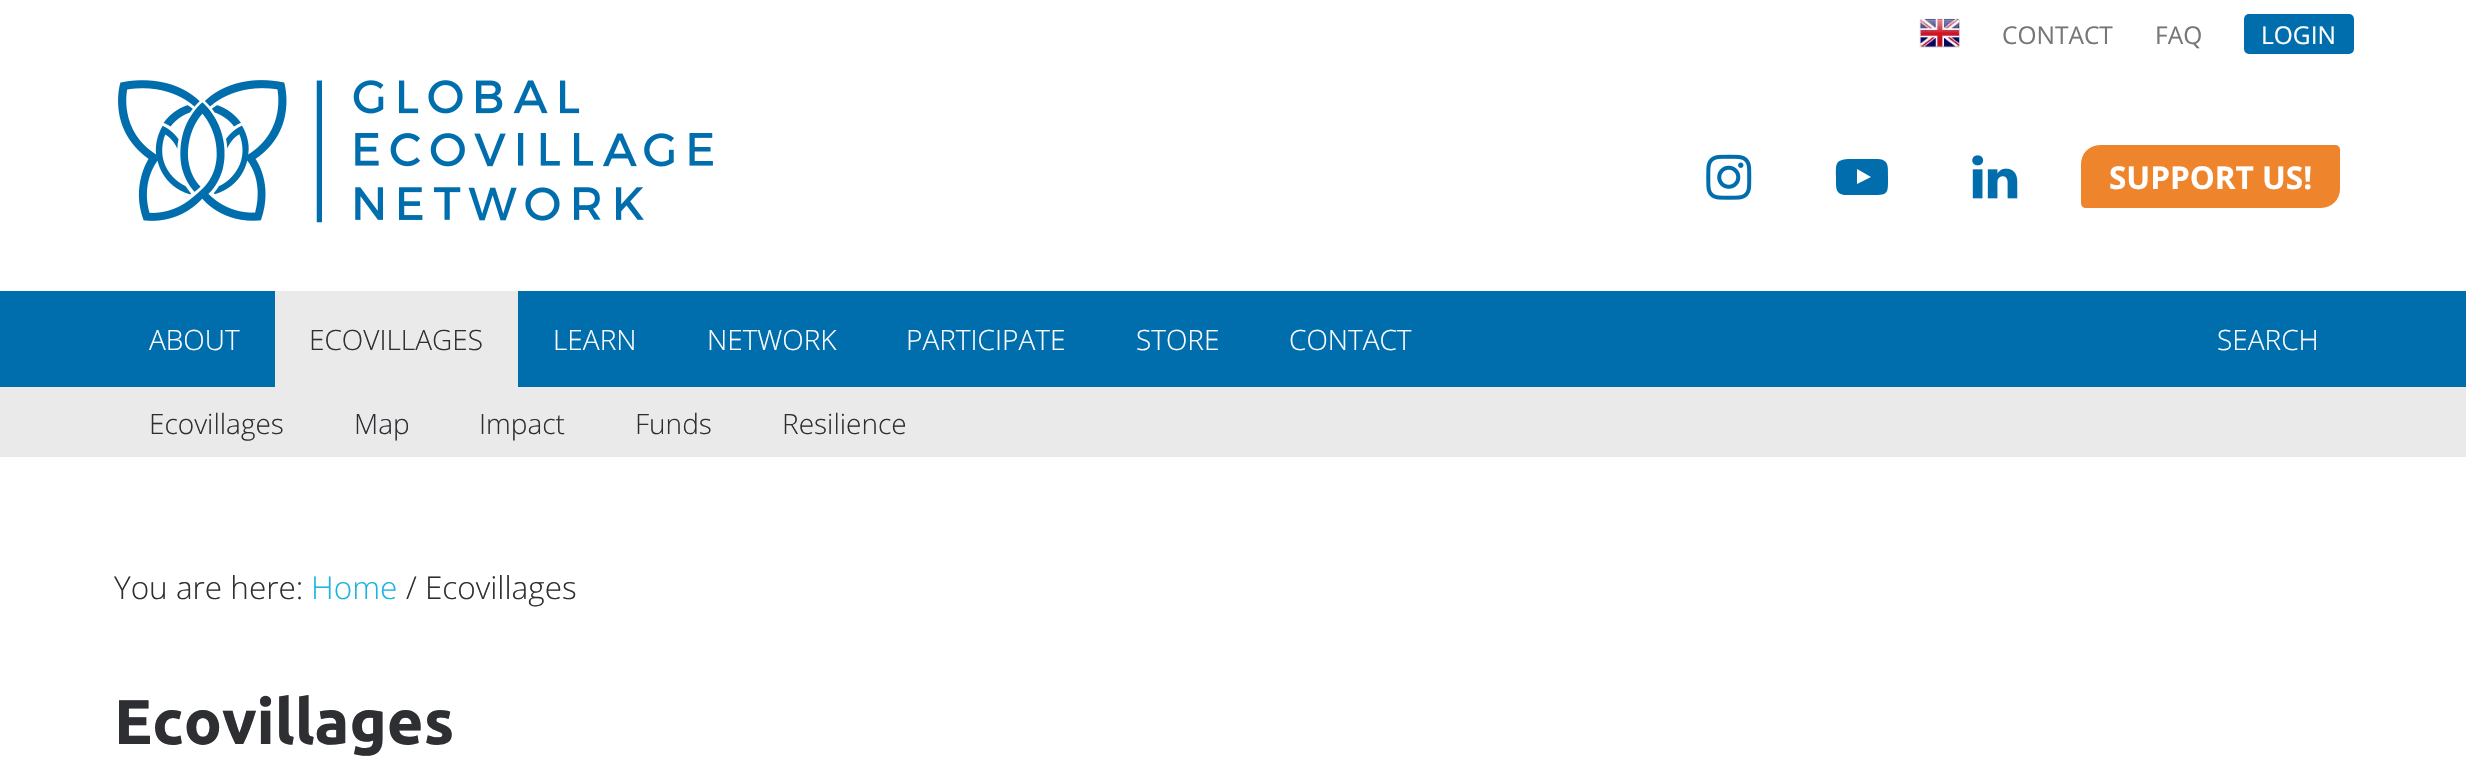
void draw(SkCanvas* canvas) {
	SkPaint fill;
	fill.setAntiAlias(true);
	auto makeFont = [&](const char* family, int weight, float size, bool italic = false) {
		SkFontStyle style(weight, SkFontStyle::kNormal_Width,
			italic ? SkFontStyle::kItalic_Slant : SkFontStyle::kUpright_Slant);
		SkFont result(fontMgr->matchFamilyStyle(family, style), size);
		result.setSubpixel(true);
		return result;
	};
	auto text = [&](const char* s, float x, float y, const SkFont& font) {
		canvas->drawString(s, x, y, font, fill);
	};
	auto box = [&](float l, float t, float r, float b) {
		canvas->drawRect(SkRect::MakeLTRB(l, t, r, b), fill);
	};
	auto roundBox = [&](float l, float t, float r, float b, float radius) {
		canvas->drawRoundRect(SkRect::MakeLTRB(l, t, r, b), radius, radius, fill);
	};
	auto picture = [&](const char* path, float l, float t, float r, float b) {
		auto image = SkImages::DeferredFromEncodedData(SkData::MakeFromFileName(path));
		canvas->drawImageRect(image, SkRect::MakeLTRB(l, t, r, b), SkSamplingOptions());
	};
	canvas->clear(0xFFFFFFFF);
	picture("image0.png", 1919, 18, 1960, 48);
	fill.setColor(0xFF006DAD);
	roundBox(2244, 14, 2354, 54, 5);
	picture("image1.png", 118, 80, 713, 223);
	picture("image2.png", 1706, 154, 1752, 200);
	fill.setColor(0xFF016DAD);
	canvas->drawPath(SkPathBuilder().moveTo(1857, 184).lineTo(1871, 177).lineTo(1857, 169).close().moveTo(1862, 159).lineTo(1878, 159).cubicTo(1889, 160, 1888, 166, 1888, 177).cubicTo(1888, 191, 1889, 195, 1876, 195).lineTo(1847, 195).cubicTo(1835, 195, 1836, 188, 1836, 177).cubicTo(1836, 164, 1835, 160, 1848, 159).close().detach(), fill);
	picture("image3.png", 1972, 155, 2018, 199);
	fill.setColor(0xFFEE842B);
	canvas->drawPath(SkPathBuilder().moveTo(2100, 145).lineTo(2335, 145).cubicTo(2338, 145, 2340, 147, 2340, 150).lineTo(2340, 189).cubicTo(2340, 199.5f, 2331.5f, 208, 2321, 208).lineTo(2086, 208).cubicTo(2083, 208, 2081, 206, 2081, 203).lineTo(2081, 164).cubicTo(2081, 153.5f, 2089.5f, 145, 2100, 145).close().detach(), fill);
	fill.setColor(0xFF006DAD);
	box(0, 291, 2466, 387);
	fill.setColor(0xFFEAEAEA);
	box(275, 291, 518, 387);
	box(0, 387, 2466, 457);
	auto font1 = makeFont("Open Sans", 400, 24.5f);
	fill.setColor(0xFF777777);
	text("CONTACT", 2002, 44, font1);
	text("FAQ", 2155, 44, font1);
	fill.setColor(0xFFFFFFFF);
	text("LOGIN", 2261, 44, font1);
	auto font2 = makeFont("Open Sans", 700, 31.5f);
	text("SUPPORT US!", 2109, 189, font2);
	auto font3 = makeFont("Open Sans", 300, 28);
	text("ABOUT", 149, 350, font3);
	fill.setColor(0xFF2E2F33);
	text("ECOVILLAGES", 309, 350, font3);
	fill.setColor(0xFFFFFFFF);
	text("LEARN", 553, 350, font3);
	text("NETWORK", 707, 350, font3);
	text("PARTICIPATE", 906, 350, font3);
	text("STORE", 1136, 350, font3);
	text("CONTACT", 1289, 350, font3);
	text("SEARCH", 2217, 350, font3);
	fill.setColor(0xFF2E2F33);
	text("Ecovillages", 149, 434, font3);
	text("Map", 354, 434, font3);
	text("Impact", 479, 434, font3);
	text("Funds", 635, 434, font3);
	text("Resilience", 782, 434, font3);
	auto font4 = makeFont("Open Sans", 300, 31.5f);
	text("You are here:", 114, 599, font4);
	fill.setColor(0xFF1DB3E0);
	text("Home", 311, 599, font4);
	fill.setColor(0xFF2E2F33);
	text("/ Ecovillages", 406, 599, font4);
	auto font5 = makeFont("Ubuntu", 700, 63);
	text("Ecovillages", 114, 744, font5);
}
